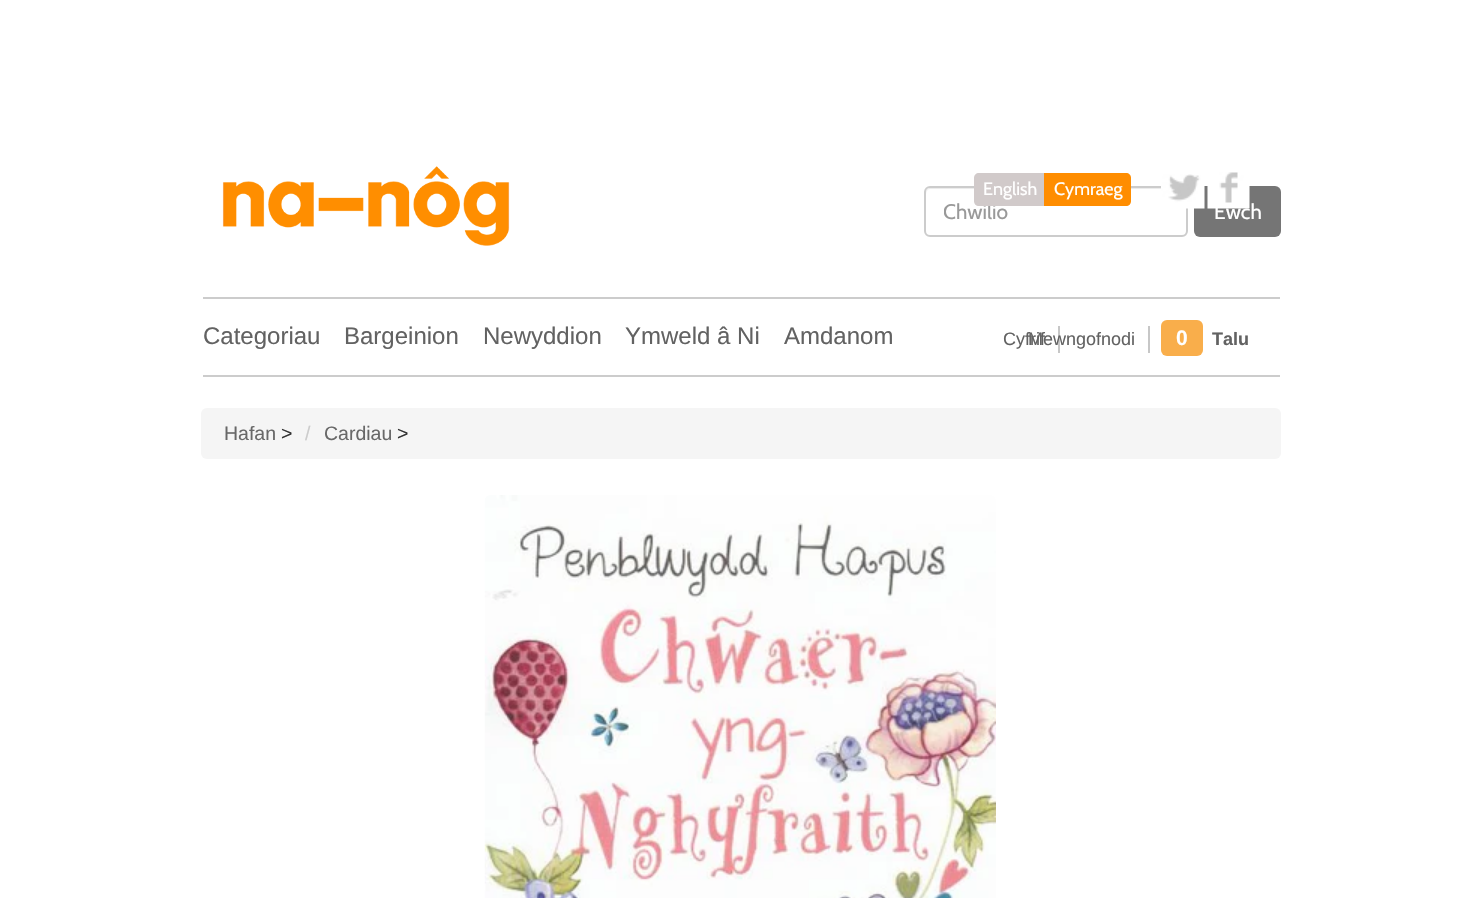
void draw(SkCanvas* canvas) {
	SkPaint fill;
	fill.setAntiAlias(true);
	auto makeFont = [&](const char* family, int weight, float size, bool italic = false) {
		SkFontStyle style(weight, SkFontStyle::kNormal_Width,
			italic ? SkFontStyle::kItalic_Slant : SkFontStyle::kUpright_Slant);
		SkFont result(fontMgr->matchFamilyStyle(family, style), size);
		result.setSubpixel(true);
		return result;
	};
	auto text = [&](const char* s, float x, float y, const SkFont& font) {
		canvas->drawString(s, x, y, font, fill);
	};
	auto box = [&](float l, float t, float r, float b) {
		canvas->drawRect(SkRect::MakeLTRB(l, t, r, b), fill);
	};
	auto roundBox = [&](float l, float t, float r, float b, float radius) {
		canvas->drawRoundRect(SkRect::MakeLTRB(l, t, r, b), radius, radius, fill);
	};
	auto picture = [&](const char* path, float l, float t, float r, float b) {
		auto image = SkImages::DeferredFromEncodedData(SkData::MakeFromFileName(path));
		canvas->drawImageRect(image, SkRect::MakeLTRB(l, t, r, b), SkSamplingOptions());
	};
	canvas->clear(0xFFFFFFFF);
	picture("image0.png", 222, 166, 510, 246);
	fill.setColor(0xFFECECEC);
	canvas->drawPath(SkPathBuilder().moveTo(930, 189).lineTo(1182, 189).cubicTo(1184, 189, 1186, 191, 1186, 194).lineTo(1186, 232).lineTo(1185, 235).cubicTo(1186, 234, 1187, 232, 1187, 231).lineTo(1187, 193).cubicTo(1187, 190, 1185, 188, 1182, 188).lineTo(931, 188).cubicTo(928, 188, 926, 190, 926, 193).lineTo(926, 194).cubicTo(926, 191, 928, 189, 930, 189).close().detach(), fill);
	fill.setStyle(SkPaint::kStroke_Style);
	fill.setStrokeWidth(2);
	fill.setColor(0xFFCCCCCC);
	canvas->drawRoundRect(SkRect::MakeLTRB(925, 187, 1187, 236), 5, 5, fill);
	fill.setStyle(SkPaint::kFill_Style);
	fill.setColor(0xFF757575);
	roundBox(1194, 186, 1281, 237, 6);
	picture("image1.png", 1161, 174, 1205, 209);
	fill.setColor(0xFFCCCCCC);
	box(203, 297, 1280, 299);
	box(203, 375, 1280, 377);
	fill.setColor(0xFFC7C7C7);
	box(1058, 326, 1060, 353);
	box(1148, 326, 1150, 353);
	fill.setColor(0xFFF9AE4B);
	roundBox(1161, 320, 1203, 356, 6);
	fill.setColor(0xFFF5F5F5);
	roundBox(201, 408, 1281, 459, 6);
	picture("image3.png", 484, 495, 996, 898);
	canvas->save();
	canvas->clipRect(SkRect::MakeLTRB(944, 198, 1169, 225));
	auto font1 = makeFont("Cabin", 400, 21);
	fill.setColor(0xFF999999);
	text("Chwilio", 943, 219, font1);
	canvas->restore();
	fill.setColor(0xFFD1CACA);
	canvas->drawPath(SkPathBuilder().moveTo(979, 173).lineTo(1046, 173).lineTo(1046, 206).lineTo(979, 206).cubicTo(976, 206, 974, 204, 974, 201).lineTo(974, 178).cubicTo(974, 175, 976, 173, 979, 173).close().detach(), fill);
	fill.setColor(0xFFFF8D00);
	canvas->drawPath(SkPathBuilder().moveTo(1044, 173).lineTo(1126, 173).cubicTo(1129, 173, 1131, 175, 1131, 178).lineTo(1131, 201).cubicTo(1131, 204, 1129, 206, 1126, 206).lineTo(1044, 206).close().detach(), fill);
	auto font2 = makeFont("Cabin", 400, 18);
	fill.setColor(0xFFFFFFFF);
	text("Cymraeg", 1054, 195, font2);
	text("English", 983, 195, font2);
	text("Ewch", 1214, 219, font1);
	picture("image2.png", 1207, 172, 1250, 209);
	auto font3 = makeFont("Liberation Sans", 400, 24);
	fill.setColor(0xFF626262);
	text("Categoriau", 203, 344, font3);
	text("Bargeinion", 344, 344, font3);
	text("Newyddion", 483, 344, font3);
	text("Ymweld â Ni", 625, 344, font3);
	text("Amdanom", 784, 344, font3);
	auto font4 = makeFont("Liberation Sans", 400, 18);
	text("Cyfrif", 1003, 345, font4);
	text("Mewngofnodi", 1028, 345, font4);
	auto font5 = makeFont("Liberation Sans", 700, 21);
	fill.setColor(0xFFFFFFFF);
	text("0", 1176, 345, font5);
	auto font6 = makeFont("Liberation Sans", 700, 18);
	fill.setColor(0xFF626262);
	text("Talu", 1212, 345, font6);
	auto font7 = makeFont("Liberation Sans", 400, 19.5f);
	fill.setColor(0xFF686868);
	text("Hafan", 224, 440, font7);
	fill.setColor(0xFF333333);
	text(">", 281, 440, font7);
	fill.setColor(0xFFCCCCCC);
	text("/", 305, 440, font7);
	fill.setColor(0xFF686868);
	text("Cardiau", 324, 440, font7);
	fill.setColor(0xFF333333);
	text(">", 397, 440, font7);
}
